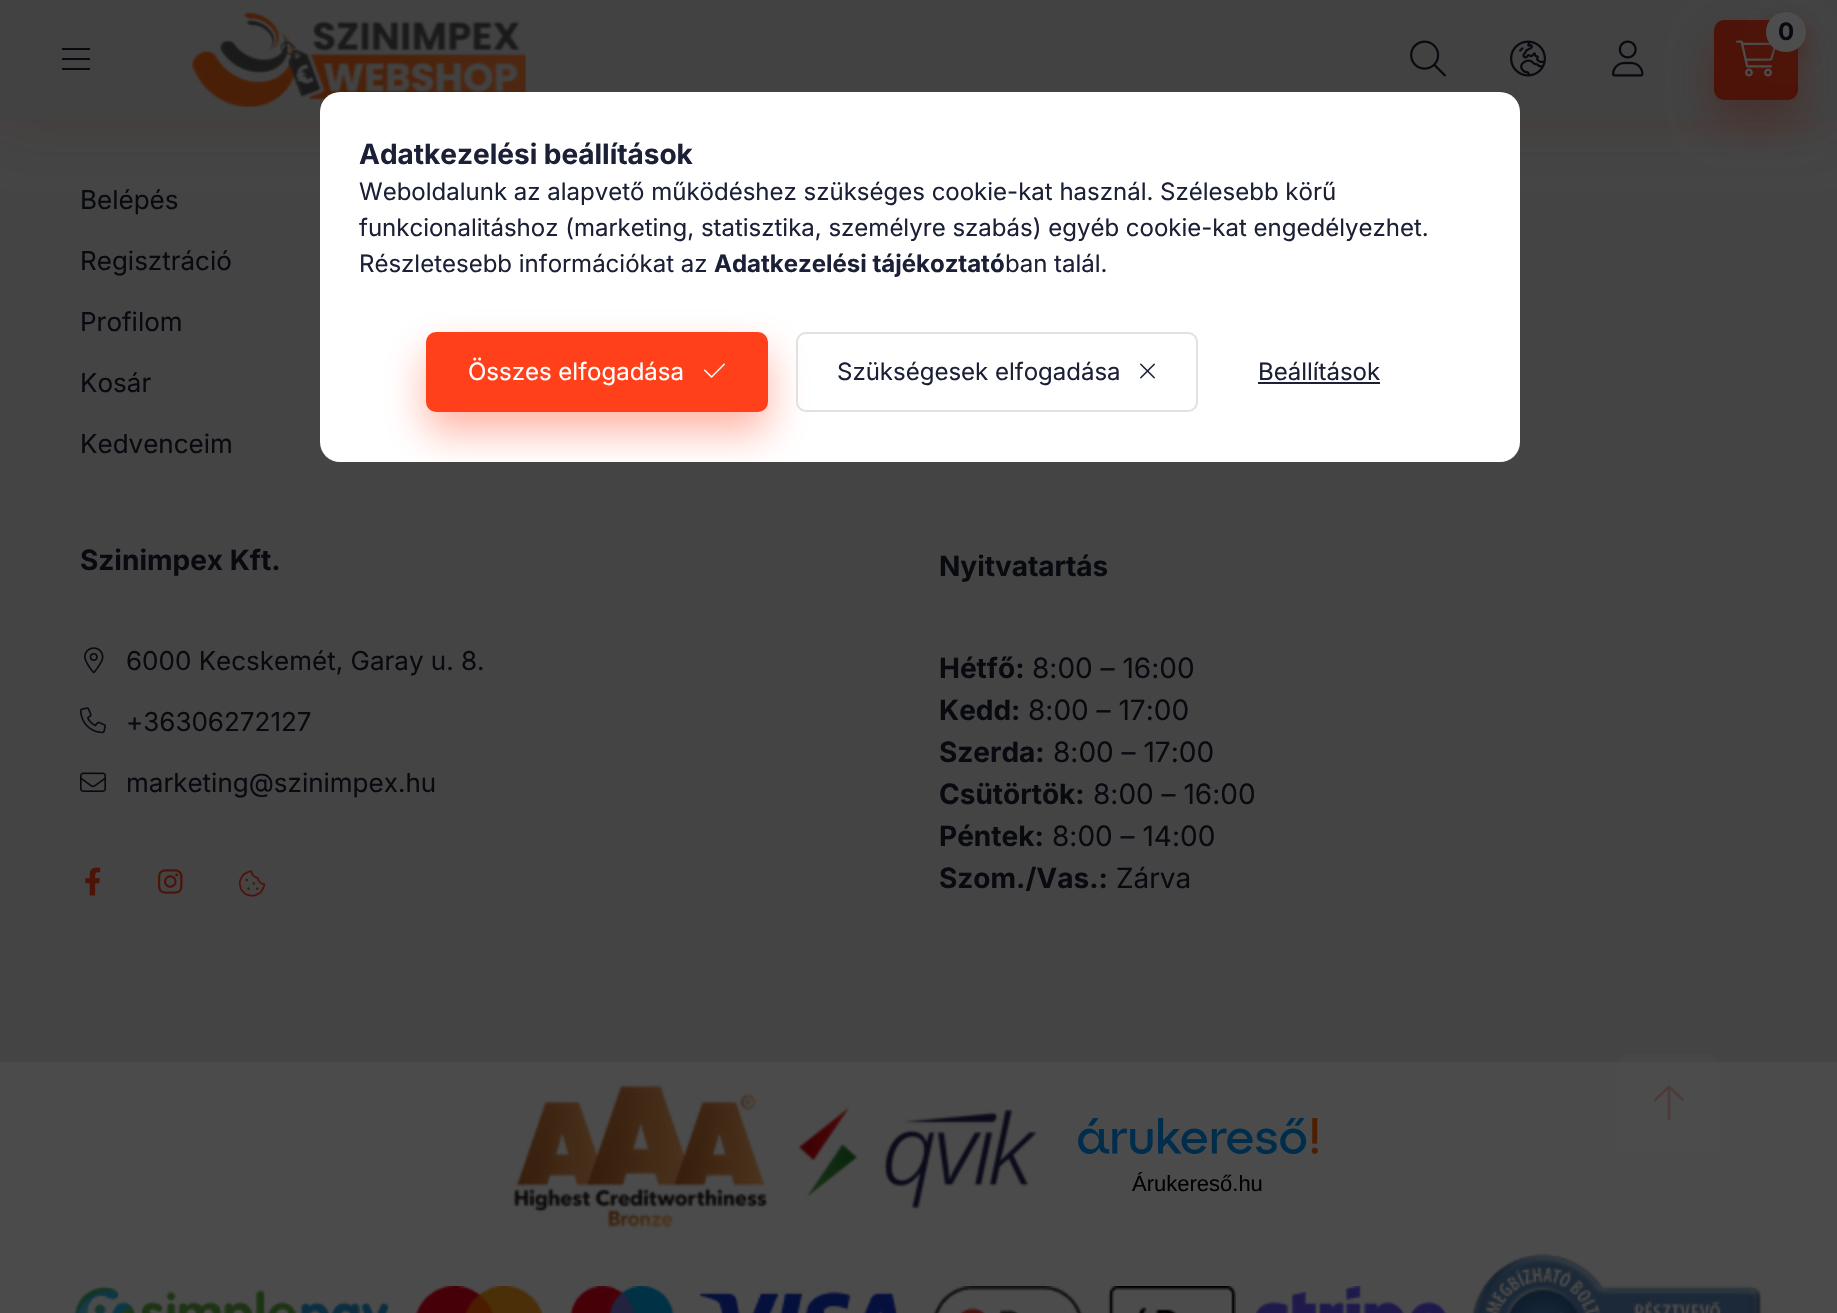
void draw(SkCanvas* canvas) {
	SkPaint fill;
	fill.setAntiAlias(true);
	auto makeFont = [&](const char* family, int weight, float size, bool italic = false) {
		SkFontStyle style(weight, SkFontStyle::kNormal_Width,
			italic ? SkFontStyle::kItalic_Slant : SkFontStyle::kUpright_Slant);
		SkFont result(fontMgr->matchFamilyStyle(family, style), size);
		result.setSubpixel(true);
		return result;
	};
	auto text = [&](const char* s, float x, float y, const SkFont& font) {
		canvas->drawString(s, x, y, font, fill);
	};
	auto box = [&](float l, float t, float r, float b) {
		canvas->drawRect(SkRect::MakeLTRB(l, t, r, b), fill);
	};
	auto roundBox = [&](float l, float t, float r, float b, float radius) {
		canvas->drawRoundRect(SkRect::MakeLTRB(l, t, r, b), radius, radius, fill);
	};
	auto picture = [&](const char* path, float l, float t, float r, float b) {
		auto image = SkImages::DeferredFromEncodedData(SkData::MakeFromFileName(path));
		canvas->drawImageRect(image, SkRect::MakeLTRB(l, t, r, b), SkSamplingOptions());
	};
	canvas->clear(0xFF4B4B4B);
	fill.setColor(0xFF444444);
	box(0, 120, 1837, 1062);
	fill.setColor(0x334D1308);
	fill.setMaskFilter(SkMaskFilter::MakeBlur(kNormal_SkBlurStyle, 30));
	canvas->drawRect(SkRect::MakeLTRB(0, 0, 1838, 120), fill);
	fill.setMaskFilter(nullptr);
	fill.setColor(0xFF424242);
	box(0, 0, 1837, 120);
	fill.setColor(0xFF080A10);
	box(62, 48, 90, 50);
	box(62, 58, 90, 60);
	box(62, 68, 90, 70);
	picture("image0.png", 192, 11, 526, 109);
	fill.setColor(0x664D1308);
	fill.setMaskFilter(SkMaskFilter::MakeBlur(kNormal_SkBlurStyle, 20));
	canvas->drawRoundRect(SkRect::MakeLTRB(1714, 40, 1798, 120), 10, 10, fill);
	fill.setMaskFilter(nullptr);
	fill.setColor(0xFF4D1308);
	roundBox(1714, 20, 1798, 100, 10);
	picture("image1.png", 1736, 40, 1776, 77);
	fill.setColor(0x664D1308);
	fill.setMaskFilter(SkMaskFilter::MakeBlur(kNormal_SkBlurStyle, 10));
	canvas->drawRoundRect(SkRect::MakeLTRB(1766, 22, 1806, 62), 20, 20, fill);
	fill.setMaskFilter(nullptr);
	fill.setColor(0xFF4D4D4D);
	canvas->drawCircle(1786, 32, 20, fill);
	picture("image2.png", 1410, 40, 1446, 77);
	picture("image3.png", 1510, 40, 1546, 77);
	picture("image4.png", 1612, 40, 1644, 77);
	picture("image5.png", 84, 647, 104, 674);
	picture("image6.png", 80, 707, 106, 734);
	picture("image7.png", 80, 772, 106, 792);
	picture("image8.png", 85, 867, 101, 896);
	picture("image9.png", 158, 869, 183, 894);
	picture("image10.png", 238, 870, 266, 897);
	picture("image11.png", 513, 1084, 768, 1229);
	picture("image12.png", 797, 1107, 1037, 1209);
	picture("image13.png", 1078, 1118, 1318, 1154);
	picture("image14.png", 73, 1286, 1236, 1313);
	picture("image15.png", 1256, 1286, 1447, 1313);
	picture("image16.png", 1471, 1253, 1762, 1313);
	fill.setColor(0xFFFFFFFF);
	roundBox(320, 92, 1520, 462, 20);
	canvas->save();
	canvas->clipPath(SkPathBuilder().moveTo(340, 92).lineTo(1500, 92).cubicTo(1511, 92, 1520, 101, 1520, 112).lineTo(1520, 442).cubicTo(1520, 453, 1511, 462, 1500, 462).lineTo(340, 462).cubicTo(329, 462, 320, 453, 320, 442).lineTo(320, 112).cubicTo(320, 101, 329, 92, 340, 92).close().detach(), true);
	fill.setColor(0x66FF401B);
	fill.setMaskFilter(SkMaskFilter::MakeBlur(kNormal_SkBlurStyle, 20));
	canvas->drawRoundRect(SkRect::MakeLTRB(426, 352, 768, 432), 10, 10, fill);
	fill.setMaskFilter(nullptr);
	canvas->restore();
	fill.setColor(0xFFFF401B);
	canvas->drawRoundRect(SkRect::MakeLTRB(427, 333, 767, 411), 9, 9, fill);
	fill.setStyle(SkPaint::kStroke_Style);
	fill.setStrokeWidth(2);
	canvas->drawRoundRect(SkRect::MakeLTRB(427, 333, 767, 411), 9, 9, fill);
	picture("image17.png", 704, 363, 725, 378);
	fill.setColor(0xFFE1E1E1);
	canvas->drawRoundRect(SkRect::MakeLTRB(797, 333, 1197, 411), 9, 9, fill);
	picture("image18.png", 1140, 363, 1155, 379);
	fill.setStyle(SkPaint::kFill_Style);
	fill.setColor(0xFF1B2036);
	box(1258, 382, 1380, 384);
	fill.setColor(0x4F4D4D4D);
	roundBox(1618, 1054, 1718, 1154, 10);
	picture("image19.png", 1654, 1085, 1684, 1121);
	auto font1 = makeFont("Inter", 700, 24);
	fill.setColor(0xFF080A10);
	text("0", 1778, 40, font1);
	auto font2 = makeFont("Inter", 400, 26);
	text("Belépés", 80, 209, font2);
	text("Regisztráció", 80, 270, font2);
	text("Profilom", 80, 331, font2);
	text("Kosár", 80, 392, font2);
	text("Kedvenceim", 80, 453, font2);
	auto font3 = makeFont("Inter", 700, 28);
	text("Szinimpex Kft.", 80, 570, font3);
	text("6000 Kecskemét, Garay u. 8.", 126, 670, font2);
	text("+36306272127", 126, 731, font2);
	text("marketing@szinimpex.hu", 126, 792, font2);
	text("Nyitvatartás", 939, 576, font3);
	text("Hétfő:", 939, 678, font3);
	auto font4 = makeFont("Inter", 400, 28);
	text("8:00 – 16:00", 1032, 678, font4);
	text("Kedd:", 939, 720, font3);
	text("8:00 – 17:00", 1028, 720, font4);
	text("Szerda:", 939, 762, font3);
	text("8:00 – 17:00", 1053, 762, font4);
	text("Csütörtök:", 939, 804, font3);
	text("8:00 – 16:00", 1093, 804, font4);
	text("Péntek:", 939, 846, font3);
	text("8:00 – 14:00", 1052, 846, font4);
	text("Szom./Vas.:", 939, 888, font3);
	text("Zárva", 1116, 888, font4);
	auto font5 = makeFont("Liberation Sans", 400, 22);
	fill.setColor(0xFF000000);
	text("Árukereső.hu", 1132, 1191, font5);
	fill.setColor(0xFF1B2036);
	text("Adatkezelési beállítások", 359, 164, font3);
	auto font6 = makeFont("Inter", 400, 24);
	text("Weboldalunk az alapvető működéshez szükséges cookie-kat használ. Szélesebb körű", 359, 200, font6);
	text("funkcionalitáshoz (marketing, statisztika, személyre szabás) egyéb cookie-kat engedélyezhet.", 359, 236, font6);
	text("Részletesebb információkat az", 359, 272, font6);
	text("Adatkezelési tájékoztató", 714, 272, font1);
	text("ban talál.", 1005, 272, font6);
	fill.setColor(0xFFFFFFFF);
	text("Összes elfogadása", 468, 380, font6);
	fill.setColor(0xFF1B2036);
	text("Szükségesek elfogadása", 837, 380, font6);
	text("Beállítások", 1258, 380, font6);
}
